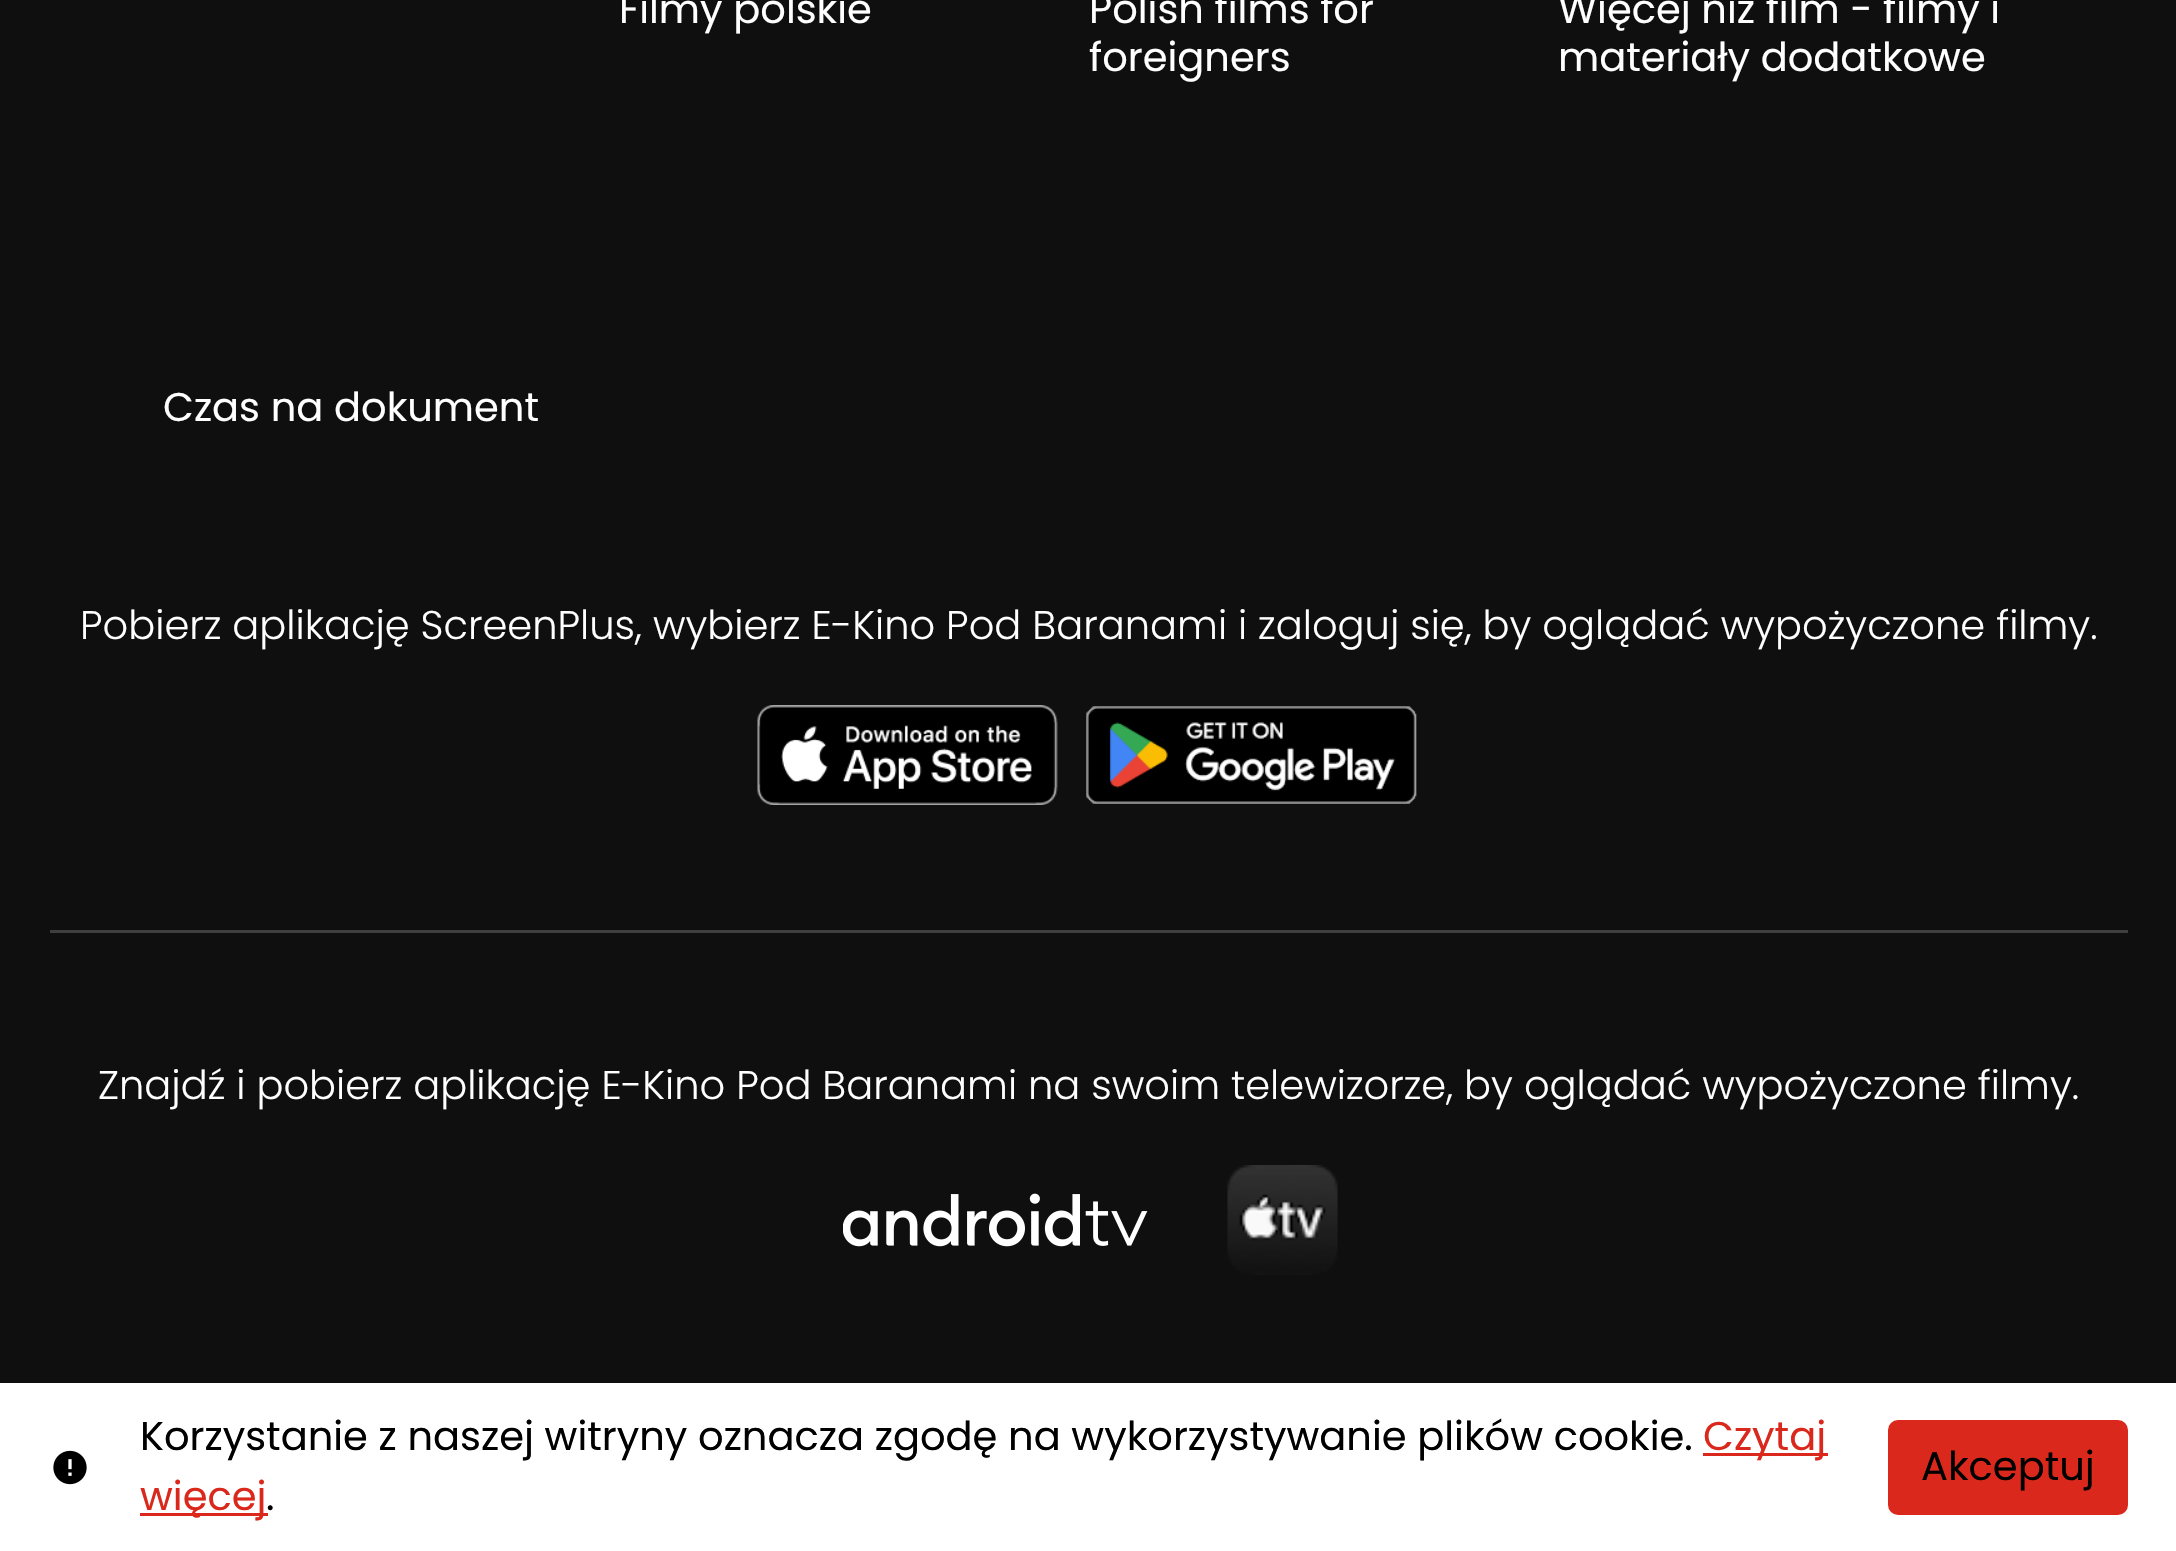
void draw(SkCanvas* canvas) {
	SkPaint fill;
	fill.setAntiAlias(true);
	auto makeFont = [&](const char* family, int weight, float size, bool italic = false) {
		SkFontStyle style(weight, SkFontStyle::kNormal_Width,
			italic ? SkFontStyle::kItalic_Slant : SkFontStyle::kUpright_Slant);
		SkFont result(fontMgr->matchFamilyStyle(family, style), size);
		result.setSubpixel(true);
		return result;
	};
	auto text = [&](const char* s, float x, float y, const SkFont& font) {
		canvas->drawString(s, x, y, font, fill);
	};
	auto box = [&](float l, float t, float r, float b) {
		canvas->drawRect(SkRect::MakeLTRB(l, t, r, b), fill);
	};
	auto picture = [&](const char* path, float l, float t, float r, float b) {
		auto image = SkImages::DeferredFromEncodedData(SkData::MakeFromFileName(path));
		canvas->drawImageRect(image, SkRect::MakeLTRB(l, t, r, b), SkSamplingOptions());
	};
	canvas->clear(0xFF0F0F0F);
	picture("image0.png", 757, 705, 1058, 805);
	picture("image1.png", 1086, 706, 1417, 804);
	fill.setColor(0xFF3F3F3F);
	box(50, 930, 2128, 933);
	picture("image2.png", 843, 1193, 1148, 1247);
	picture("image3.png", 1227, 1165, 1338, 1275);
	fill.setColor(0xFFFFFFFF);
	box(0, 1383, 2176, 1551);
	picture("image4.png", 53, 1450, 87, 1485);
	fill.setColor(0xFFDA291C);
	box(1703, 1453, 1828, 1456);
	box(140, 1513, 268, 1516);
	canvas->drawRoundRect(SkRect::MakeLTRB(1889.5f, 1421.5f, 2126.5f, 1513.5f), 8.5f, 8.5f, fill);
	fill.setStyle(SkPaint::kStroke_Style);
	fill.setStrokeWidth(3);
	canvas->drawRoundRect(SkRect::MakeLTRB(1889.5f, 1421.5f, 2126.5f, 1513.5f), 8.5f, 8.5f, fill);
	auto font1 = makeFont("Poppins", 400, 40);
	fill.setStyle(SkPaint::kFill_Style);
	fill.setColor(0xFFFFFFFF);
	text("Filmy polskie", 619, 23, font1);
	text("Polish films for", 1089, 23, font1);
	text("foreigners", 1089, 71, font1);
	text("Więcej niż film - filmy i", 1558, 23, font1);
	text("materiały dodatkowe", 1558, 71, font1);
	text("Czas na dokument", 163, 421, font1);
	auto font2 = makeFont("Poppins", 300, 40);
	text("Pobierz aplikację ScreenPlus, wybierz E-Kino Pod Baranami i zaloguj się, by oglądać wypożyczone filmy.", 80, 639, font2);
	text("Znajdź i pobierz aplikację E-Kino Pod Baranami na swoim telewizorze, by oglądać wypożyczone filmy.", 98, 1099, font2);
	fill.setColor(0xFF000000);
	text("Korzystanie z naszej witryny oznacza zgodę na wykorzystywanie plików cookie.", 140, 1450, font1);
	fill.setColor(0xFFDA291C);
	text("Czytaj", 1703, 1450, font1);
	text("więcej", 140, 1510, font1);
	fill.setColor(0xFF000000);
	text(".", 266, 1510, font1);
	text("Akceptuj", 1921, 1480, font1);
}
